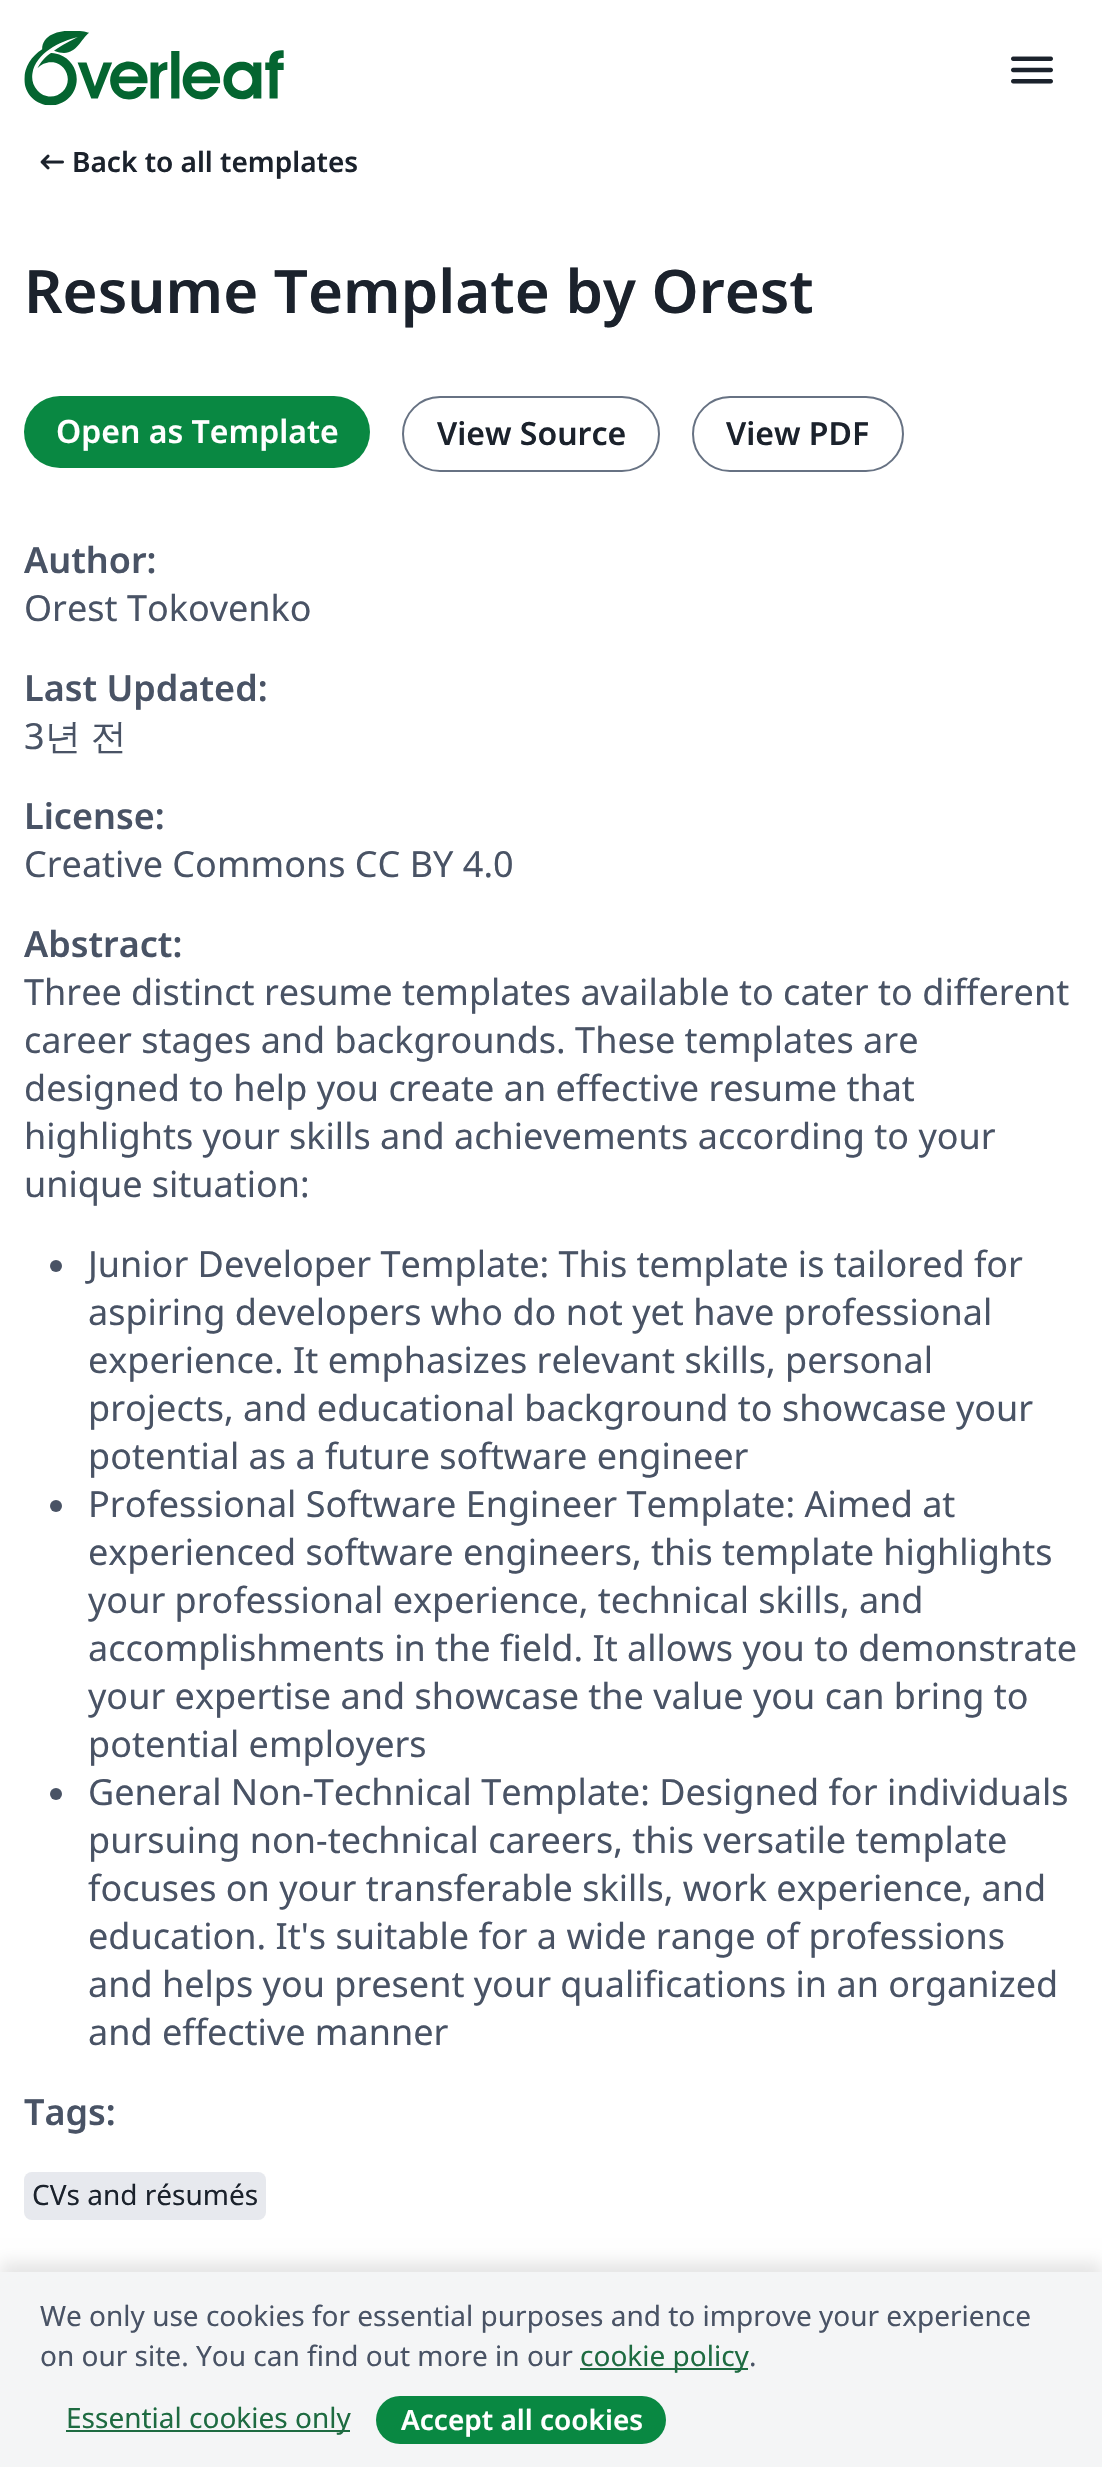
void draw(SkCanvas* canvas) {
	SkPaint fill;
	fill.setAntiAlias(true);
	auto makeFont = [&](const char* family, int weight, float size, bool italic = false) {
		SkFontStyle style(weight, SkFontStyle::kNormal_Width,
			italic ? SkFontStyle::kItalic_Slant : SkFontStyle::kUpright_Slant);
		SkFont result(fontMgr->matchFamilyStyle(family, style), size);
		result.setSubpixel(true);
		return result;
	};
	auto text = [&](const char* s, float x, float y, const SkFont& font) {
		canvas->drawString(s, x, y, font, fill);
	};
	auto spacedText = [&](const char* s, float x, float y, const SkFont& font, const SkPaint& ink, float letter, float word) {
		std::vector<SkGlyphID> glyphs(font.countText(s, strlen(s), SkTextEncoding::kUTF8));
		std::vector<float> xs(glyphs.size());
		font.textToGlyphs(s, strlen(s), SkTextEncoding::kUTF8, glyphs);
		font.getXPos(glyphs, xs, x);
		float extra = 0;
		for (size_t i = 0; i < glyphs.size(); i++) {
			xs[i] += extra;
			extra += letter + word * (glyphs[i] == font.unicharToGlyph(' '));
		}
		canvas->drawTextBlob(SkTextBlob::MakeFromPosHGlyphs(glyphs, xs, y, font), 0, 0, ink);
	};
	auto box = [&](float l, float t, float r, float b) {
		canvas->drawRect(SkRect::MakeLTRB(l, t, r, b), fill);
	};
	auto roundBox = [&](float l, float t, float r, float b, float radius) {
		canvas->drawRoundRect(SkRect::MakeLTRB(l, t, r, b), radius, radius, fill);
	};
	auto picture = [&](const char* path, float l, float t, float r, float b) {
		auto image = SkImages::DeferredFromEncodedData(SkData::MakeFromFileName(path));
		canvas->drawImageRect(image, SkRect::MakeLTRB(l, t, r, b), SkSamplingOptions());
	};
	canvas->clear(0xFFFFFFFF);
	picture("image0.png", 24, 31, 284, 106);
	picture("image1.png", 1011, 56, 1053, 84);
	picture("image2.png", 40, 154, 64, 170);
	fill.setColor(0xFF098842);
	roundBox(24, 396, 370, 468, 36);
	fill.setStyle(SkPaint::kStroke_Style);
	fill.setStrokeWidth(2);
	fill.setColor(0xFF677283);
	canvas->drawRoundRect(SkRect::MakeLTRB(403, 397, 659, 471), 37, 37, fill);
	canvas->drawRoundRect(SkRect::MakeLTRB(693, 397, 903, 471), 37, 37, fill);
	fill.setStyle(SkPaint::kFill_Style);
	fill.setColor(0xFF495365);
	canvas->drawCircle(56, 1266, 6, fill);
	canvas->drawCircle(56, 1506, 6, fill);
	canvas->drawCircle(56, 1794, 6, fill);
	fill.setColor(0xFFE7E9EE);
	roundBox(24, 2172, 266, 2220, 8);
	fill.setColor(0x1A000000);
	fill.setMaskFilter(SkMaskFilter::MakeBlur(kNormal_SkBlurStyle, 8));
	canvas->drawRect(SkRect::MakeLTRB(0, 2262, 1102, 2458), fill);
	fill.setMaskFilter(nullptr);
	fill.setColor(0xFFF4F5F6);
	box(0, 2272, 1102, 2467);
	fill.setColor(0xFF1E6B41);
	box(580, 2368, 748, 2370);
	box(66, 2430, 350, 2432);
	fill.setColor(0xFF098842);
	roundBox(376, 2396, 666, 2444, 24);
	auto font1 = makeFont("Noto Sans", 600, 28);
	fill.setColor(0xFF1B222C);
	text("Back to all templates", 72, 172, font1);
	auto font2 = makeFont("Noto Sans", 600, 60);
	text("Resume Template by Orest", 24, 313, font2);
	auto font3 = makeFont("Noto Sans", 600, 32);
	fill.setColor(0xFFFFFFFF);
	text("Open as Template", 56, 443, font3);
	fill.setColor(0xFF1B222C);
	text("View Source", 437, 445, font3);
	text("View PDF", 726, 445, font3);
	auto font4 = makeFont("Noto Sans", 600, 36);
	fill.setColor(0xFF495365);
	text("Author:", 24, 573, font4);
	auto font5 = makeFont("Noto Sans", 400, 36);
	text("Orest Tokovenko", 24, 621, font5);
	text("Last Updated:", 24, 701, font4);
	text("3", 24, 749, font5);
	auto font6 = makeFont("WenQuanYi Zen Hei", 500, 36);
	spacedText("년 전", 45, 749, font6, fill, 0, -1);
	text("License:", 24, 829, font4);
	text("Creative Commons CC BY 4.0", 24, 877, font5);
	text("Abstract:", 24, 957, font4);
	text("Three distinct resume templates available to cater to different", 24, 1005, font5);
	text("career stages and backgrounds. These templates are", 24, 1053, font5);
	text("designed to help you create an effective resume that", 24, 1101, font5);
	text("highlights your skills and achievements according to your", 24, 1149, font5);
	text("unique situation:", 24, 1197, font5);
	text("Junior Developer Template: This template is tailored for", 88, 1277, font5);
	text("aspiring developers who do not yet have professional", 88, 1325, font5);
	text("experience. It emphasizes relevant skills, personal", 88, 1373, font5);
	text("projects, and educational background to showcase your", 88, 1421, font5);
	text("potential as a future software engineer", 88, 1469, font5);
	text("Professional Software Engineer Template: Aimed at", 88, 1517, font5);
	text("experienced software engineers, this template highlights", 88, 1565, font5);
	text("your professional experience, technical skills, and", 88, 1613, font5);
	text("accomplishments in the field. It allows you to demonstrate", 88, 1661, font5);
	text("your expertise and showcase the value you can bring to", 88, 1709, font5);
	text("potential employers", 88, 1757, font5);
	text("General Non-Technical Template: Designed for individuals", 88, 1805, font5);
	text("pursuing non-technical careers, this versatile template", 88, 1853, font5);
	text("focuses on your transferable skills, work experience, and", 88, 1901, font5);
	text("education. It's suitable for a wide range of professions", 88, 1949, font5);
	text("and helps you present your qualifications in an organized", 88, 1997, font5);
	text("and effective manner", 88, 2045, font5);
	text("Tags:", 24, 2125, font4);
	auto font7 = makeFont("Noto Sans", 400, 28);
	fill.setColor(0xFF1B222C);
	text("CVs and résumés", 32, 2205, font7);
	fill.setColor(0xFF495365);
	text("We only use cookies for essential purposes and to improve your experience", 40, 2326, font7);
	text("on our site. You can find out more in our", 40, 2366, font7);
	fill.setColor(0xFF1E6B41);
	text("cookie policy", 580, 2366, font7);
	fill.setColor(0xFF495365);
	text(".", 749, 2366, font7);
	fill.setColor(0xFF1E6B41);
	text("Essential cookies only", 66, 2428, font7);
	fill.setColor(0xFFFFFFFF);
	text("Accept all cookies", 401, 2430, font1);
}
